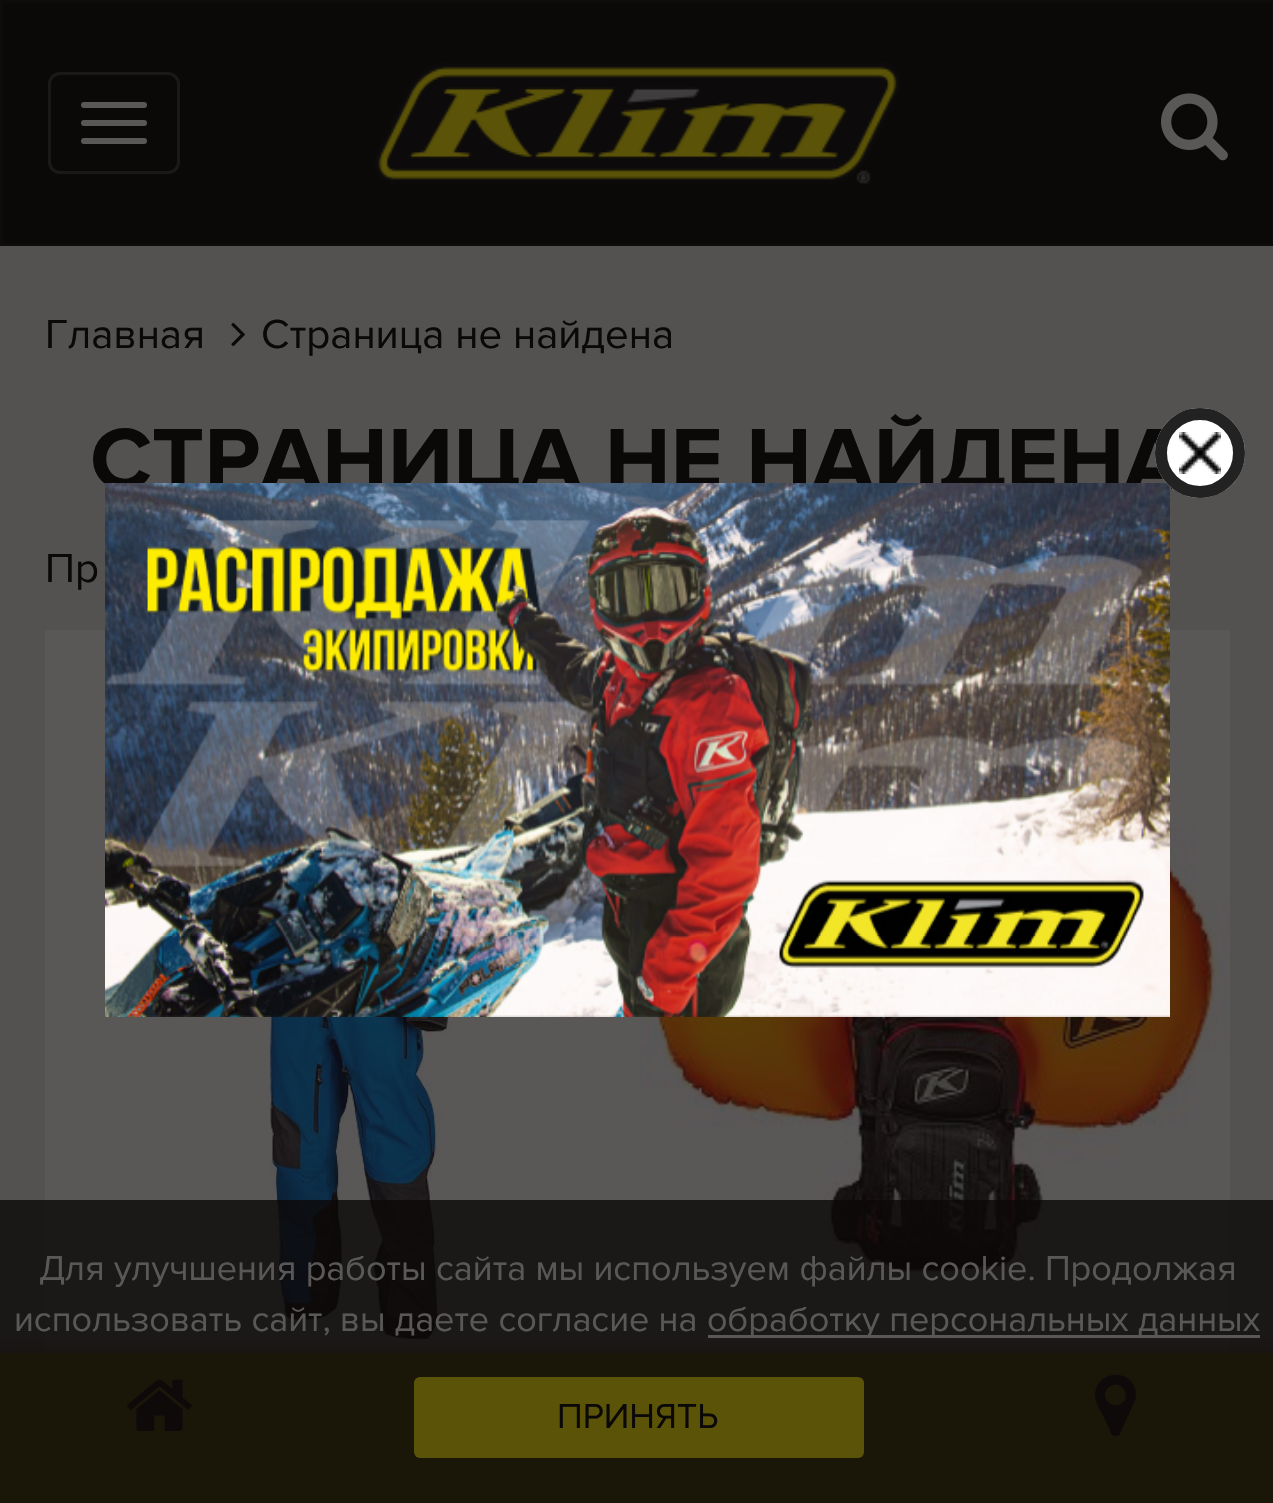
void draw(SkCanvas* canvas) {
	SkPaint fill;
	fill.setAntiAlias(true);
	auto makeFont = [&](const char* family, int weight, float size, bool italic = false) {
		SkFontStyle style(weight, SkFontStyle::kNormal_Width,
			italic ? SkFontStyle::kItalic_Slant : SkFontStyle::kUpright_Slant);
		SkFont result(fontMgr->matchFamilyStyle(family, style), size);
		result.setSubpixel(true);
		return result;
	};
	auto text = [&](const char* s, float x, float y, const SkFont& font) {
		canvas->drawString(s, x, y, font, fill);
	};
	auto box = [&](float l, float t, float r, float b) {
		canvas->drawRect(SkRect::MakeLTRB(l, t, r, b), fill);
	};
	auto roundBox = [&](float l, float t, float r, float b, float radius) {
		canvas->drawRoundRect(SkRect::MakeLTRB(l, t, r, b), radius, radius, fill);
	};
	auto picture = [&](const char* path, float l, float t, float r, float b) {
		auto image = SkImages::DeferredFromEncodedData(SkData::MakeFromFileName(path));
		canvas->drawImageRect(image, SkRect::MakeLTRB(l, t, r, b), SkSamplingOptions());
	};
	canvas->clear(0xFF545151);
	fill.setColor(0xFF0B0808);
	canvas->drawRect(SkRect::MakeLTRB(1.5f, 1.5f, 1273.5f, 244.5f), fill);
	fill.setStyle(SkPaint::kStroke_Style);
	fill.setStrokeWidth(3);
	fill.setColor(0xFF0E0B0B);
	canvas->drawRect(SkRect::MakeLTRB(1.5f, 1.5f, 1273.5f, 244.5f), fill);
	picture("image0.png", 375, 63, 900, 184);
	fill.setColor(0xFF1B1818);
	canvas->drawRoundRect(SkRect::MakeLTRB(49.5f, 73.5f, 178.5f, 172.5f), 10.5f, 10.5f, fill);
	fill.setStyle(SkPaint::kFill_Style);
	fill.setColor(0xFF5A5757);
	roundBox(81, 102, 147, 108, 3);
	roundBox(81, 120, 147, 126, 3);
	roundBox(81, 138, 147, 144, 3);
	picture("image1.png", 1161, 93, 1228, 161);
	picture("image2.png", 231, 322, 245, 347);
	box(45, 630, 1230, 1353);
	picture("image3.png", 198, 1015, 478, 1346);
	picture("image4.png", 639, 752, 1230, 1275);
	fill.setColor(0xFF38371B);
	fill.setMaskFilter(SkMaskFilter::MakeBlur(kNormal_SkBlurStyle, 7.5f));
	canvas->drawRect(SkRect::MakeLTRB(0, 1353, 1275, 1503), fill);
	fill.setMaskFilter(nullptr);
	fill.setColor(0xFF5A5308);
	box(0, 1353, 1273, 1503);
	picture("image7.png", 127, 1379, 192, 1431);
	fill.setColor(0xFF161313);
	canvas->drawPath(SkPathBuilder().moveTo(1123, 1402).cubicTo(1132, 1393, 1118, 1378, 1108, 1388).cubicTo(1099, 1397, 1113, 1412, 1123, 1402).close().moveTo(1136, 1395).cubicTo(1136, 1400, 1134, 1403, 1132, 1407).lineTo(1120, 1434).cubicTo(1119, 1435, 1118, 1436, 1116, 1436).cubicTo(1111, 1437, 1110, 1431, 1109, 1428).lineTo(1104, 1418).cubicTo(1101, 1411, 1095, 1403, 1095, 1395).cubicTo(1096, 1368, 1136, 1368, 1136, 1395).close().detach(), fill);
	fill.setColor(0xCC0B0808);
	box(0, 1200, 1273, 1503);
	fill.setColor(0xFF5A5757);
	box(708, 1335, 1260, 1338);
	fill.setColor(0xFF5A5308);
	roundBox(414, 1377, 864, 1458, 6);
	auto font1 = makeFont("Proxima Nova", 400, 42);
	fill.setColor(0xFF0B0808);
	text("Главная", 45, 348, font1);
	text("Страница не найдена", 261, 348, font1);
	auto font2 = makeFont("Proxima Nova", 700, 90);
	text("СТРАНИЦА НЕ НАЙДЕНА", 90, 489, font2);
	text("Пр", 45, 582, font1);
	picture("image6.png", 105, 483, 1170, 1017);
	fill.setColor(0xFFFFFFFF);
	canvas->drawCircle(1200, 453, 45, fill);
	picture("image5.png", 1179, 432, 1221, 474);
	fill.setStyle(SkPaint::kStroke_Style);
	fill.setStrokeWidth(12);
	fill.setColor(0xFF222222);
	canvas->drawCircle(1200, 453, 39, fill);
	auto font3 = makeFont("Proxima Nova", 400, 36);
	fill.setStyle(SkPaint::kFill_Style);
	fill.setColor(0xFF5A5757);
	text("Для улучшения работы сайта мы используем файлы cookie. Продолжая", 39, 1280, font3);
	text("использовать сайт, вы даете согласие на", 14, 1331, font3);
	text("обработку персональных данных", 707, 1331, font3);
	fill.setColor(0xFF0B0808);
	text("ПРИНЯТЬ", 557, 1428, font3);
}
